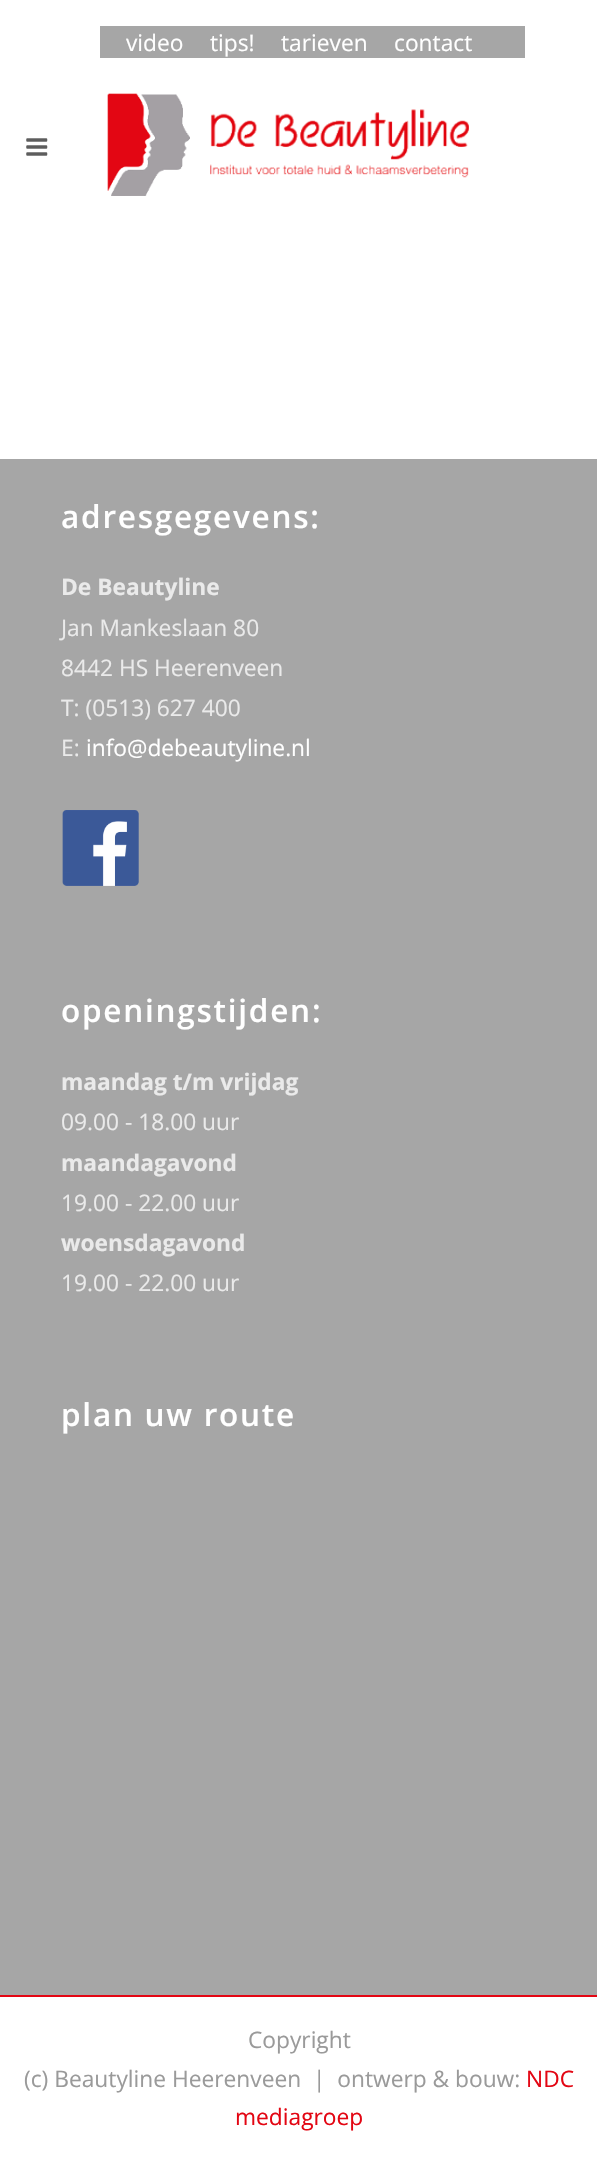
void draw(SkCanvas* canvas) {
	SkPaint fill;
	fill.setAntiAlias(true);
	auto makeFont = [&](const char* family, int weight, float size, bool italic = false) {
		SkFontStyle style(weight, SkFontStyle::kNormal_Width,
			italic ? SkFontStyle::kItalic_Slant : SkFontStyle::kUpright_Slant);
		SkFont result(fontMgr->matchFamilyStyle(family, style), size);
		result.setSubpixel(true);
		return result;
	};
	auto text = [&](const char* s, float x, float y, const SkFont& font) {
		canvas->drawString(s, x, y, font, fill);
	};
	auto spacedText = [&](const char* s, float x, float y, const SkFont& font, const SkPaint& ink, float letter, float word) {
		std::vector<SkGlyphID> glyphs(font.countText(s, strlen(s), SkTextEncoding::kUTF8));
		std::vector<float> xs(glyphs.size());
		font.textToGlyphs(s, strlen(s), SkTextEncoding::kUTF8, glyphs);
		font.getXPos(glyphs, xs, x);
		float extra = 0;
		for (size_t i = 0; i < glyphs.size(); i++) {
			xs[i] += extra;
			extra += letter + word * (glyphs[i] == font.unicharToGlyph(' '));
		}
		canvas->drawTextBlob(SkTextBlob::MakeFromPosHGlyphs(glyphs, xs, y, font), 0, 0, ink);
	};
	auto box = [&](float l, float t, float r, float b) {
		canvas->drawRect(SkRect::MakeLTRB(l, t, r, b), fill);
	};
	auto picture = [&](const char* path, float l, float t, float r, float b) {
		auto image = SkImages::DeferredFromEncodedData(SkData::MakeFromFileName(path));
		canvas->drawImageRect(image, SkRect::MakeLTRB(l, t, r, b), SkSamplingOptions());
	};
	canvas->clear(0xFFFFFFFF);
	fill.setColor(0xFFA6A6A6);
	box(100, 26, 525, 58);
	picture("image0.png", 26, 138, 48, 156);
	picture("image1.png", 107, 93, 469, 196);
	box(0, 459, 597, 1995);
	picture("image2.png", 62, 810, 139, 886);
	fill.setColor(0xFFE30613);
	box(0, 1995, 597, 1997);
	auto font1 = makeFont("Open Sans", 400, 22.75f);
	fill.setColor(0xFFFFFFFF);
	text("video", 126, 51, font1);
	text("tips!", 210, 51, font1);
	text("tarieven", 281, 51, font1);
	text("contact", 394, 51, font1);
	auto font2 = makeFont("Open Sans", 600, 31.5f);
	spacedText("adresgegevens:", 61, 528, font2, fill, 1.75f, 0);
	auto font3 = makeFont("Open Sans", 700, 22.75f);
	fill.setColor(0xFFEAEAEA);
	text("De Beautyline", 61, 595, font3);
	text("Jan Mankeslaan 80", 61, 636, font1);
	text("8442 HS Heerenveen", 61, 676, font1);
	text("T: (0513) 627 400", 61, 716, font1);
	text("E:", 61, 756, font1);
	fill.setColor(0xFFFFFFFF);
	text("info@debeautyline.nl", 86, 756, font1);
	spacedText("openingstijden:", 61, 1022, font2, fill, 1.75f, 0);
	fill.setColor(0xFFEAEAEA);
	text("maandag t/m vrijdag", 61, 1090, font3);
	text("09.00 - 18.00 uur", 61, 1130, font1);
	text("maandagavond", 61, 1171, font3);
	text("19.00 - 22.00 uur", 61, 1211, font1);
	text("woensdagavond", 61, 1251, font3);
	text("19.00 - 22.00 uur", 61, 1291, font1);
	fill.setColor(0xFFFFFFFF);
	spacedText("plan uw route", 61, 1426, font2, fill, 1.75f, 0);
	fill.setColor(0xFF9A9A9A);
	text("Copyright", 248, 2048, font1);
	text("(c) Beautyline Heerenveen  |  ontwerp & bouw:", 24, 2087, font1);
	fill.setColor(0xFFE30613);
	text("NDC", 526, 2087, font1);
	text("mediagroep", 235, 2125, font1);
}
